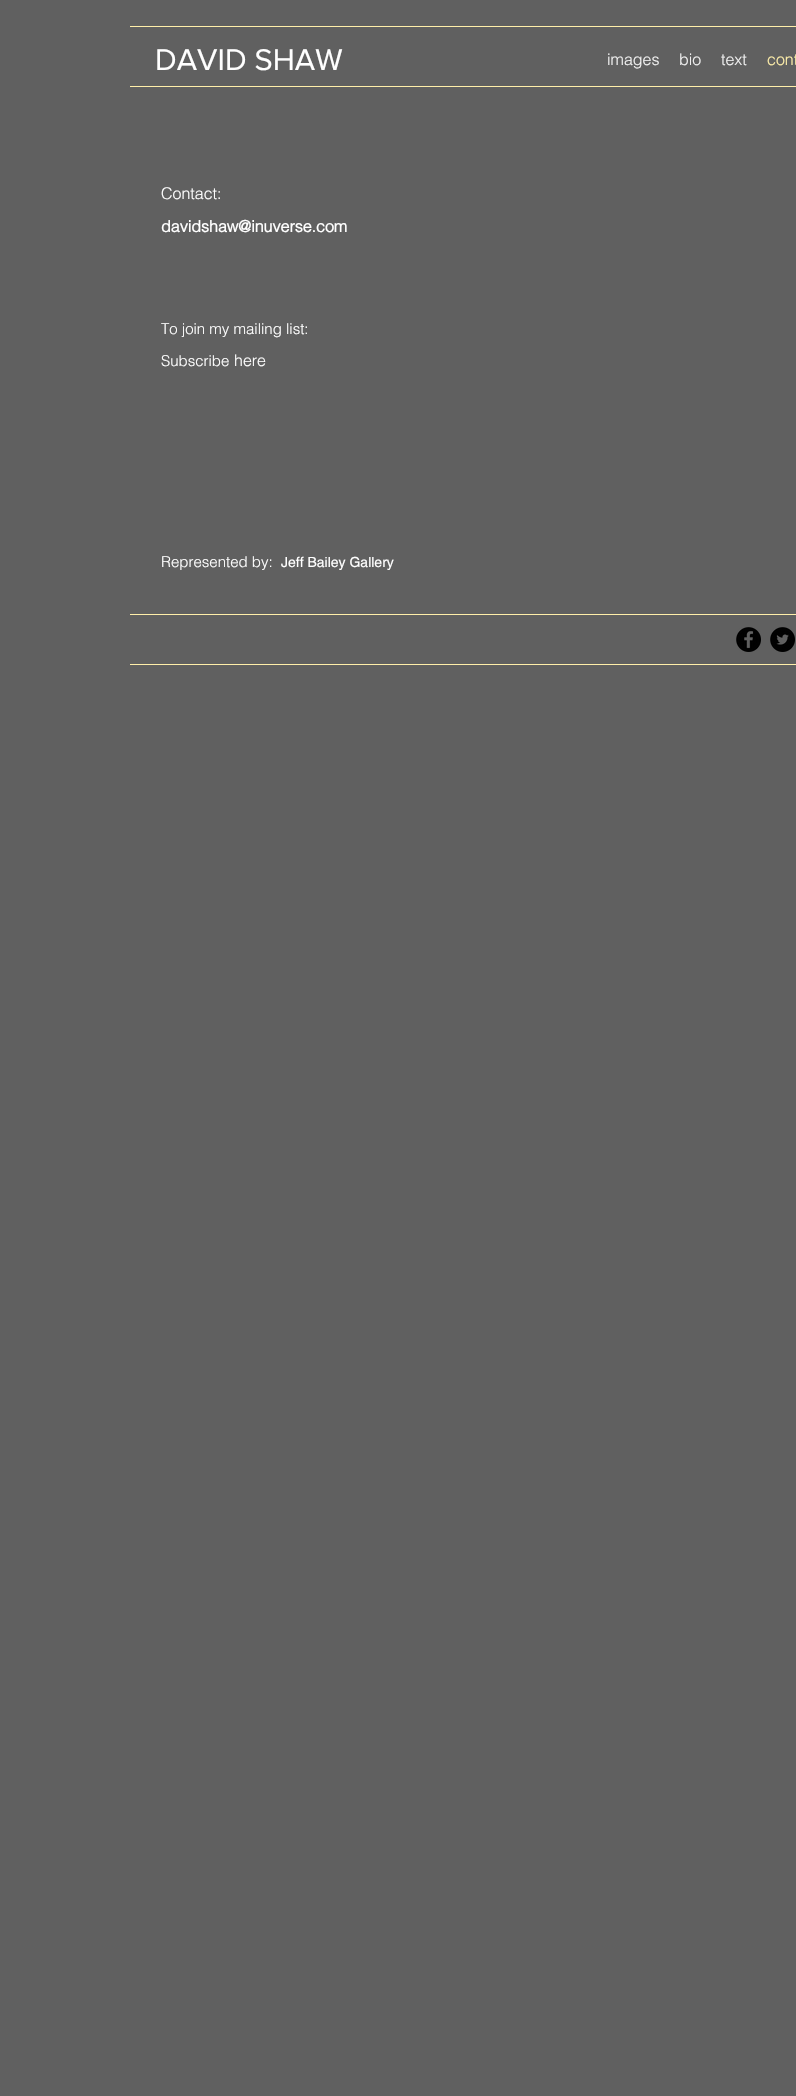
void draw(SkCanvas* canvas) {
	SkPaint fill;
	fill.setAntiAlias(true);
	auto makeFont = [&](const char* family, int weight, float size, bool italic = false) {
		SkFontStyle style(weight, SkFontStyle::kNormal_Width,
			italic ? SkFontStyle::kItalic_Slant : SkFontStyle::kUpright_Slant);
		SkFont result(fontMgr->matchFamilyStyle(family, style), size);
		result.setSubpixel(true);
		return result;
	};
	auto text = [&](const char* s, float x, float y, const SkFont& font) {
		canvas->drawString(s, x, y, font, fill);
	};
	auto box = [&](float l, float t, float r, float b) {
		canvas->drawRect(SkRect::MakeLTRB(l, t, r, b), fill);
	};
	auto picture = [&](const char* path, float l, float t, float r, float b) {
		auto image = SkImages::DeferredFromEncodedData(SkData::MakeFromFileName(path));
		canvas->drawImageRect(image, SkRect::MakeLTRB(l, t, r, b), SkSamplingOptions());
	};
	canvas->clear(0xFF606060);
	fill.setColor(0xFFFFEFAA);
	box(130, 26, 796, 27);
	box(130, 86, 796, 87);
	box(130, 614, 796, 615);
	picture("image0.png", 736, 627, 761, 652);
	picture("image1.png", 770, 627, 795, 652);
	box(130, 664, 796, 665);
	auto font1 = makeFont("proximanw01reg", 400, 31);
	fill.setColor(0xFFFFFFFF);
	text("DAVID SHAW", 155, 70, font1);
	auto font2 = makeFont("helvetica", 300, 16);
	fill.setColor(0xFFF2F2F2);
	text("images", 607, 65, font2);
	text("bio", 679, 65, font2);
	text("text", 721, 65, font2);
	fill.setColor(0xFFFFEFAA);
	text("cont", 767, 65, font2);
	fill.setColor(0xFFFFFFFF);
	text("Contact:", 161, 199, font2);
	auto font3 = makeFont("helvetica", 700, 16);
	text("davidshaw@inuverse.com", 161, 232, font3);
	auto font4 = makeFont("helvetica", 300, 15);
	text("To join my mailing list:", 161, 334, font4);
	text("Subscribe", 161, 366, font4);
	text("here", 234, 366, font2);
	text("Represented by:", 161, 567, font4);
	auto font5 = makeFont("helvetica", 400, 14);
	text("Jeff Bailey Gallery", 281, 567, font5);
}
